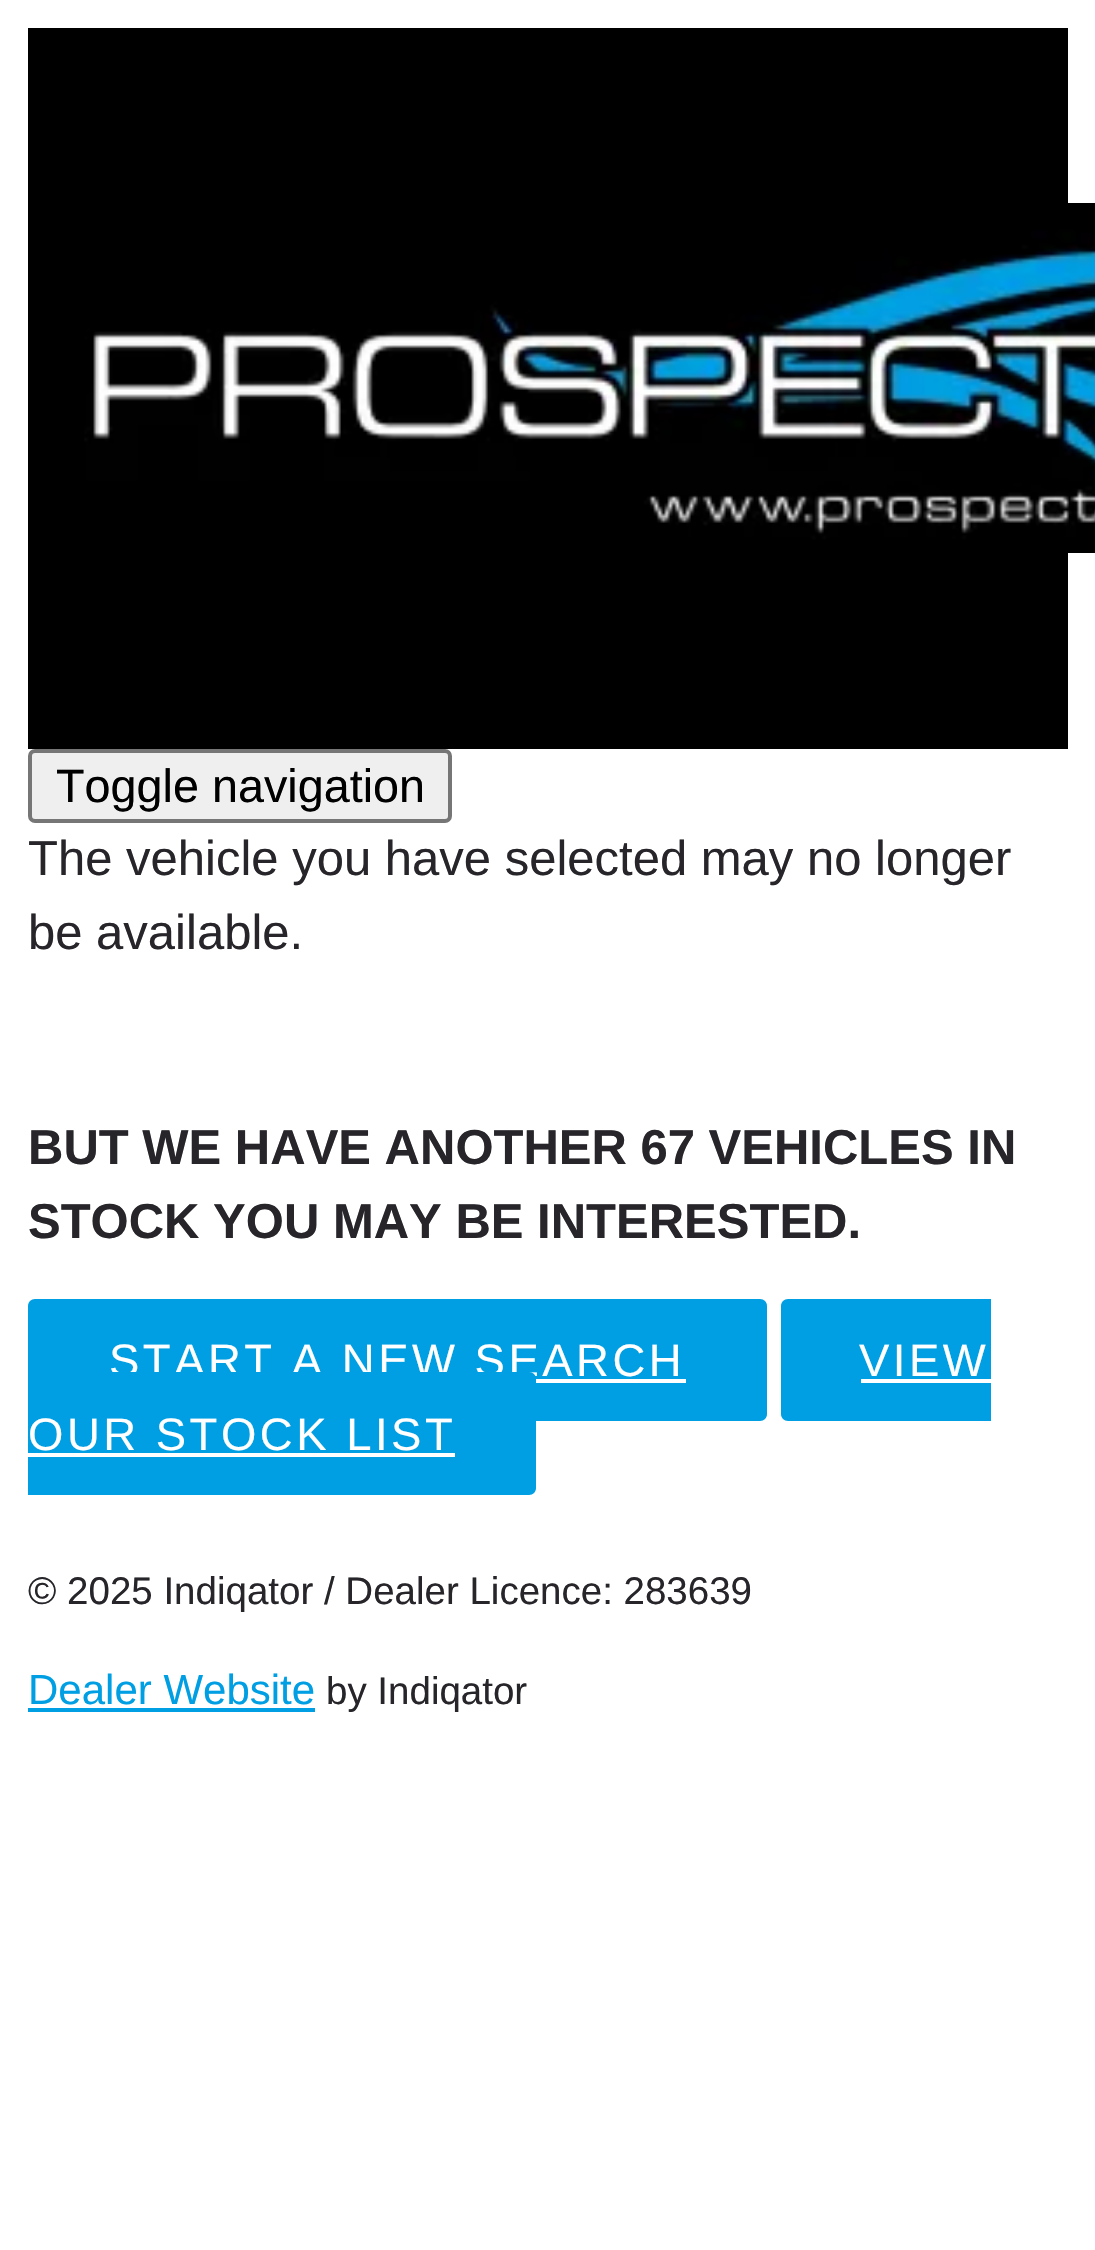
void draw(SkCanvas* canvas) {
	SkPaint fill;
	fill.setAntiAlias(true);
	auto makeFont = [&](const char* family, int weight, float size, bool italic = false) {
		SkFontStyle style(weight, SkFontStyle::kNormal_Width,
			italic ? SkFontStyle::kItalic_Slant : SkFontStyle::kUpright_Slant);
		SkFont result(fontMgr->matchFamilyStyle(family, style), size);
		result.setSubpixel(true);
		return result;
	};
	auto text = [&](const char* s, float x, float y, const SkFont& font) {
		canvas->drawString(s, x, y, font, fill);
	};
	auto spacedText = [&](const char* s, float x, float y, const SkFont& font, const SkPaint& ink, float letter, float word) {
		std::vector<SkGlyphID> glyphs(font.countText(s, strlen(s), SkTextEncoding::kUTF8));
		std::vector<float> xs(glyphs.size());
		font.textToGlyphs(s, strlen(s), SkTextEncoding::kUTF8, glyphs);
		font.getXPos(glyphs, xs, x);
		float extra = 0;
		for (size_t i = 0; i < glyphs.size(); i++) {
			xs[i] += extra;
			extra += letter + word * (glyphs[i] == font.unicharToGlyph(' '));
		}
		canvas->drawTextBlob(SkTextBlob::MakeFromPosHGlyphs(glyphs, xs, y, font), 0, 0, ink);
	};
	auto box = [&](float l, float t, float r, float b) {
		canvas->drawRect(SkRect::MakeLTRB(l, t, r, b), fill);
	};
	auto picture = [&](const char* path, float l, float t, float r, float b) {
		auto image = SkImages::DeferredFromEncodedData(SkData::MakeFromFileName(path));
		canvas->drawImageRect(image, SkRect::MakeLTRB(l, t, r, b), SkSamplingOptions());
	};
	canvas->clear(0xFFFFFFFF);
	fill.setColor(0xFF000000);
	box(28, 28, 1068, 749);
	picture("image0.png", 84, 203, 1095, 553);
	fill.setColor(0xFFEFEFEF);
	canvas->drawRoundRect(SkRect::MakeLTRB(30, 751, 450, 821), 5, 5, fill);
	fill.setStyle(SkPaint::kStroke_Style);
	fill.setStrokeWidth(4);
	fill.setColor(0xFF767676);
	canvas->drawRoundRect(SkRect::MakeLTRB(30, 751, 450, 821), 5, 5, fill);
	fill.setStyle(SkPaint::kFill_Style);
	fill.setColor(0xFF009FE3);
	canvas->drawPath(SkPathBuilder().moveTo(35, 1299).lineTo(109, 1299).lineTo(109, 1421).lineTo(35, 1421).cubicTo(31, 1421, 28, 1418, 28, 1414).lineTo(28, 1306).cubicTo(28, 1302, 31, 1299, 35, 1299).close().detach(), fill);
	box(109, 1299, 686, 1421);
	canvas->drawPath(SkPathBuilder().moveTo(686, 1299).lineTo(760, 1299).cubicTo(764, 1299, 767, 1302, 767, 1306).lineTo(767, 1414).cubicTo(767, 1418, 764, 1421, 760, 1421).lineTo(686, 1421).close().detach(), fill);
	fill.setColor(0xFFFFFFFF);
	box(536, 1379, 686, 1383);
	fill.setColor(0xFF009FE3);
	canvas->drawPath(SkPathBuilder().moveTo(788, 1299).lineTo(861, 1299).lineTo(861, 1421).lineTo(788, 1421).cubicTo(784, 1421, 781, 1418, 781, 1414).lineTo(781, 1306).cubicTo(781, 1302, 784, 1299, 788, 1299).close().detach(), fill);
	box(861, 1299, 991, 1421);
	fill.setColor(0xFFFFFFFF);
	box(861, 1379, 991, 1383);
	fill.setColor(0xFF009FE3);
	box(28, 1708, 315, 1712);
	auto font1 = makeFont("Liberation Sans", 400, 46.75f);
	fill.setColor(0xFF000000);
	text("Toggle navigation", 56, 802, font1);
	auto font2 = makeFont("Liberation Sans", 400, 49);
	fill.setColor(0xFF27252A);
	text("The vehicle you have selected may no longer", 28, 875, font2);
	text("be available.", 28, 949, font2);
	auto font3 = makeFont("Liberation Sans", 700, 49);
	text("BUT WE HAVE ANOTHER 67 VEHICLES IN", 28, 1164, font3);
	text("STOCK YOU MAY BE INTERESTED.", 28, 1238, font3);
	auto font4 = makeFont("Liberation Sans", 400, 45.5f);
	fill.setColor(0xFFFFFFFF);
	spacedText("START A NEW SEARCH", 109, 1376, font4, fill, 3.5f, 0);
	spacedText("VIEW", 859, 1376, font4, fill, 3.5f, 0);
	fill.setColor(0xFF009FE3);
	box(28, 1372, 455, 1495);
	fill.setColor(0xFFFFFFFF);
	spacedText("OUR STOCK LIST", 28, 1450, font4, fill, 3.5f, 0);
	fill.setColor(0xFF009FE3);
	canvas->drawPath(SkPathBuilder().moveTo(455, 1372).lineTo(529, 1372).cubicTo(533, 1372, 536, 1375, 536, 1379).lineTo(536, 1488).cubicTo(536, 1492, 533, 1495, 529, 1495).lineTo(455, 1495).close().detach(), fill);
	fill.setColor(0xFFFFFFFF);
	box(28, 1453, 455, 1457);
	auto font5 = makeFont("Liberation Sans", 400, 38.5f);
	fill.setColor(0xFF27252A);
	text("© 2025 Indiqator / Dealer Licence: 283639", 28, 1604, font5);
	auto font6 = makeFont("Liberation Sans", 400, 42);
	fill.setColor(0xFF009FE3);
	text("Dealer Website", 28, 1704, font6);
	fill.setColor(0xFF27252A);
	text("by Indiqator", 326, 1704, font5);
}
